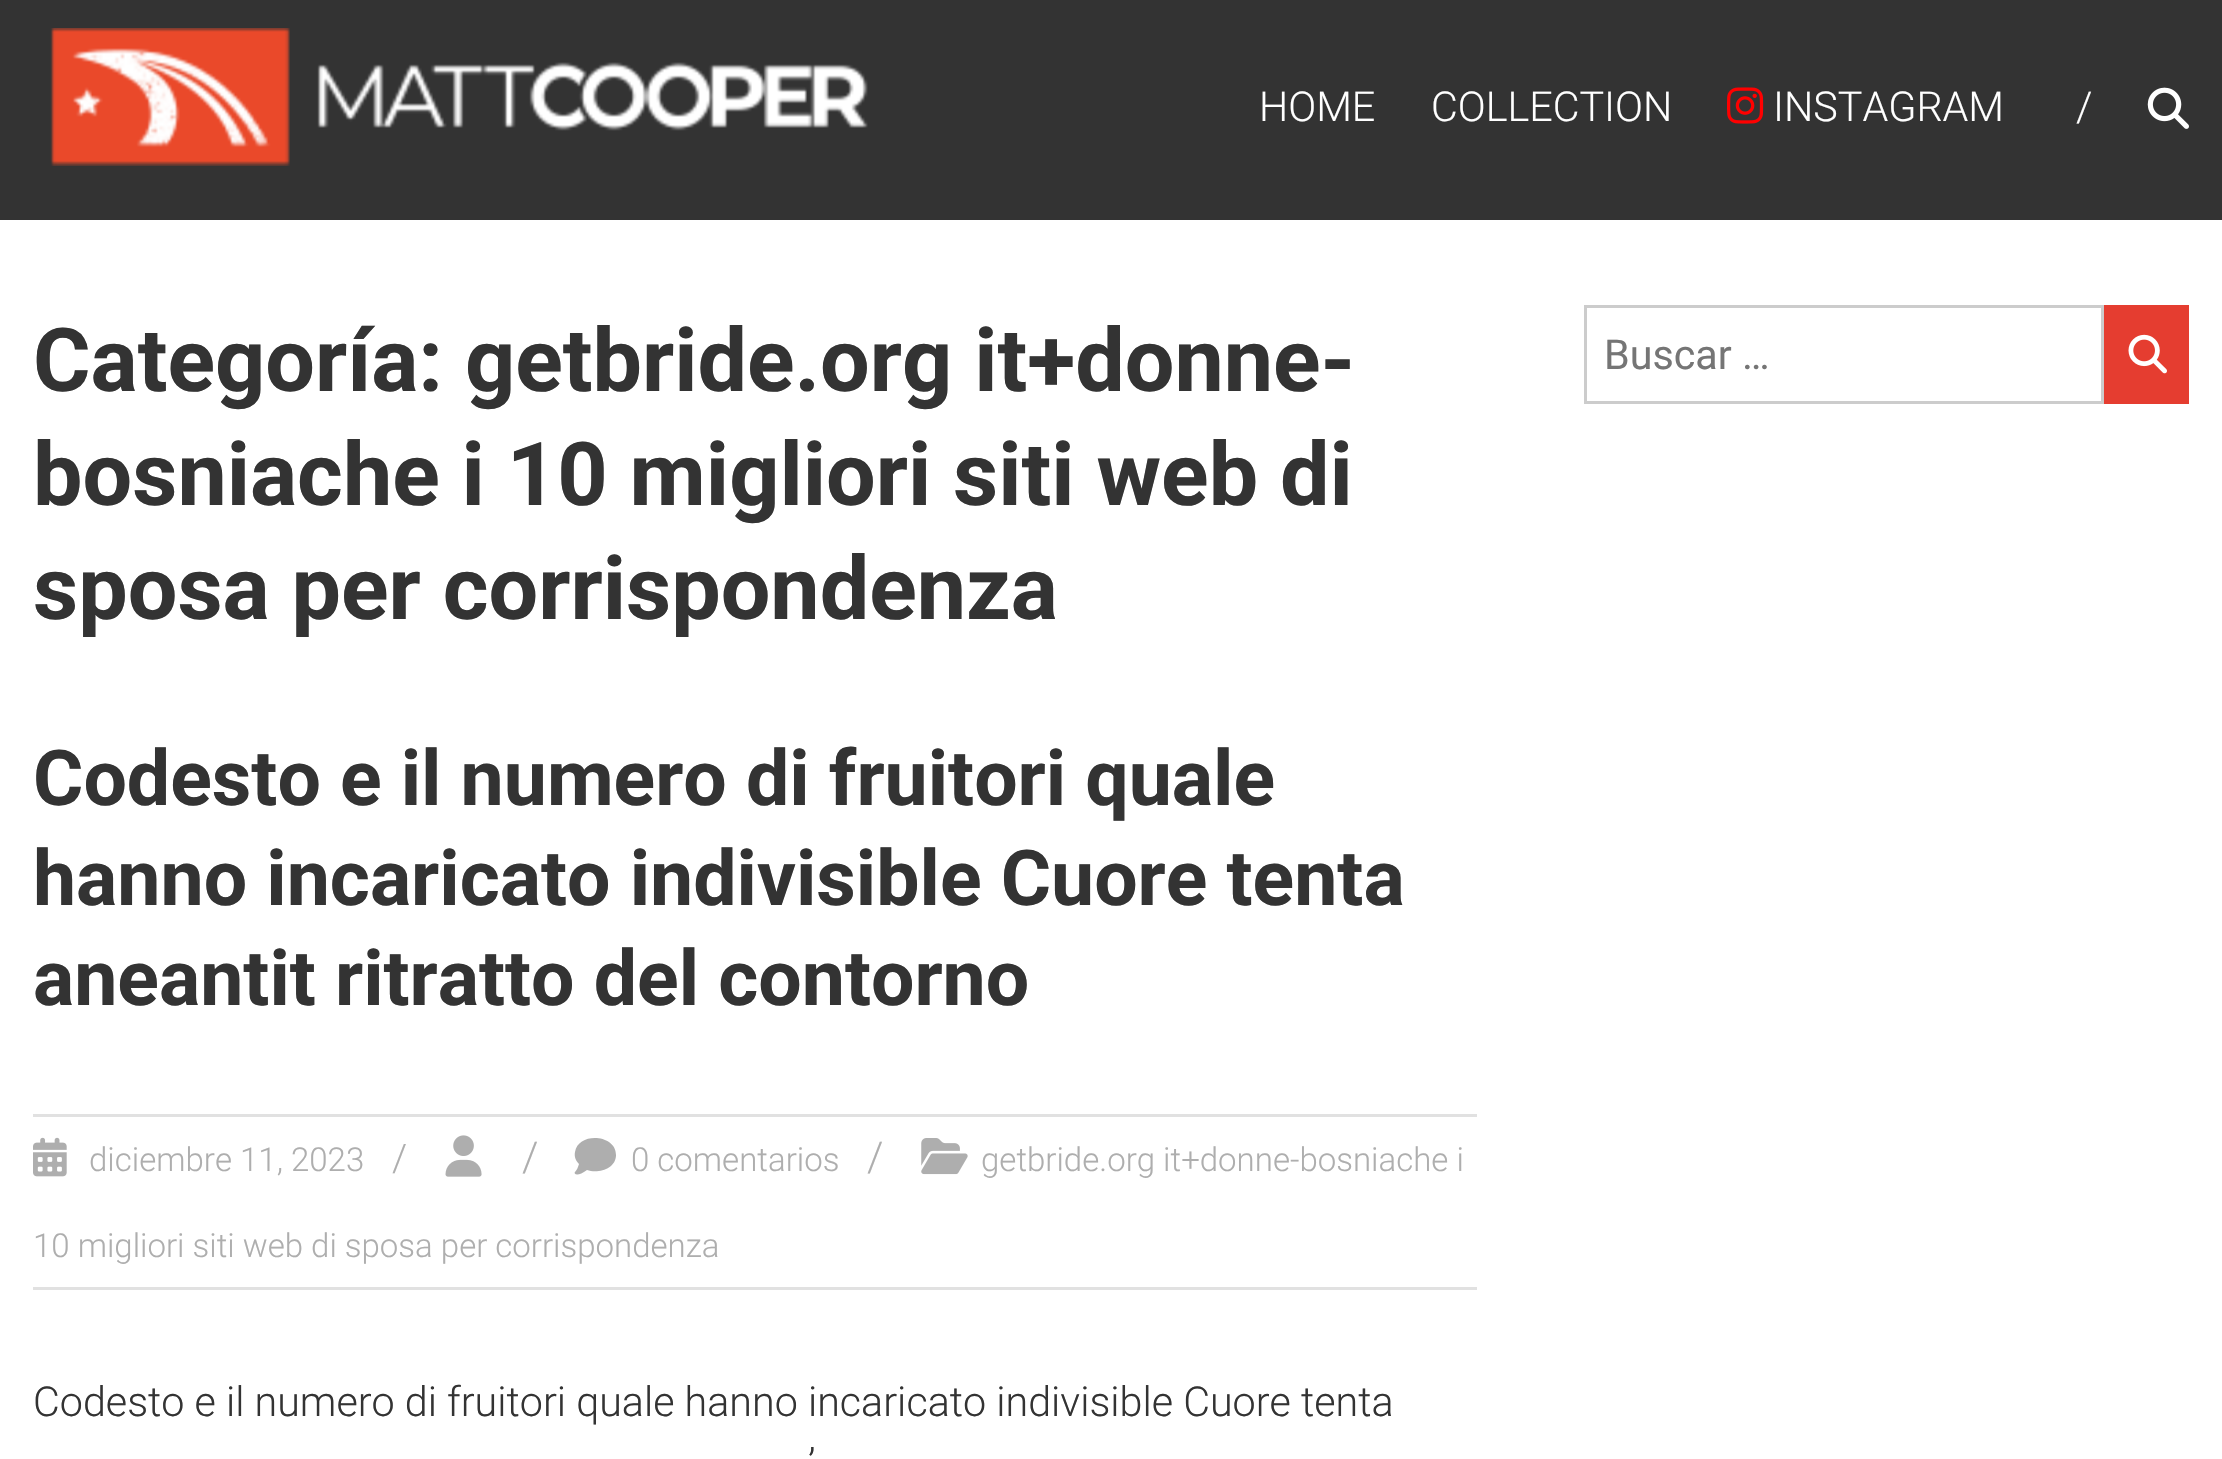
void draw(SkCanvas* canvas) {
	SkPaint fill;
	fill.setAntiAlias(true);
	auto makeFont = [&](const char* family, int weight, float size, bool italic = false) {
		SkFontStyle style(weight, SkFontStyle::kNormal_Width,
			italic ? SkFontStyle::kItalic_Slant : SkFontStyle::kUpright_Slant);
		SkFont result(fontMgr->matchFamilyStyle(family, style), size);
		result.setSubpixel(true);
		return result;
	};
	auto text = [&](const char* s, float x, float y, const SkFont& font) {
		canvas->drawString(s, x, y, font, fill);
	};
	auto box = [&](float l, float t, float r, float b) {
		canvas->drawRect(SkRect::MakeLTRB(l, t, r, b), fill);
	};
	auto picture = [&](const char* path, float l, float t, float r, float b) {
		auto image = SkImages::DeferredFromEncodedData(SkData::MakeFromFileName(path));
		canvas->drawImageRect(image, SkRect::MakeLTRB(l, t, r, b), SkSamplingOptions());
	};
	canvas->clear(0xFFFFFFFF);
	fill.setColor(0xFF333333);
	box(0, 0, 2222, 220);
	picture("image0.png", 50, 28, 868, 166);
	picture("image1.png", 1727, 87, 1764, 124);
	picture("image2.png", 2147, 87, 2189, 129);
	fill.setColor(0xFFE1E1E1);
	box(33, 1114, 1477, 1117);
	box(33, 1287, 1477, 1290);
	picture("image3.png", 33, 1137, 67, 1177);
	picture("image4.png", 445, 1135, 482, 1177);
	fill.setColor(0xFFAEAEAE);
	canvas->drawPath(SkPathBuilder().moveTo(616, 1155).cubicTo(616, 1169, 598, 1174, 587, 1170).cubicTo(578, 1177, 573, 1174, 575, 1172).cubicTo(577, 1170, 578, 1167, 579, 1164).cubicTo(576, 1161, 574, 1157, 575, 1152).cubicTo(578, 1132, 616, 1134, 616, 1155).close().detach(), fill);
	picture("image5.png", 921, 1138, 968, 1175);
	fill.setStyle(SkPaint::kStroke_Style);
	fill.setStrokeWidth(3);
	fill.setColor(0xFFCCCCCC);
	canvas->drawRect(SkRect::MakeLTRB(1585.5f, 306.5f, 2102.5f, 402.5f), fill);
	fill.setStyle(SkPaint::kFill_Style);
	fill.setColor(0xFFE53D30);
	box(2104, 305, 2189, 404);
	picture("image6.png", 2128, 334, 2167, 374);
	auto font1 = makeFont("Roboto", 300, 41.25f);
	fill.setColor(0xFFFFFFFF);
	text("HOME", 1259, 121, font1);
	text("COLLECTION", 1431, 121, font1);
	text("INSTAGRAM", 1773, 121, font1);
	text("/", 2076, 121, font1);
	auto font2 = makeFont("Roboto", 700, 88);
	fill.setColor(0xFF333333);
	text("Categoría: getbride.org it+donne-", 33, 391, font2);
	text("bosniache i 10 migliori siti web di", 33, 505, font2);
	text("sposa per corrispondenza", 33, 619, font2);
	auto font3 = makeFont("Roboto", 700, 77);
	text("Codesto e il numero di fruitori quale", 33, 805, font3);
	text("hanno incaricato indivisible Cuore tenta", 33, 905, font3);
	text("aneantit ritratto del contorno", 33, 1005, font3);
	auto font4 = makeFont("Roboto", 300, 33);
	fill.setColor(0xFFAEAEAE);
	text("diciembre 11, 2023", 89, 1171, font4);
	auto font5 = makeFont("Roboto", 300, 38);
	text("/", 392, 1171, font5);
	text("/", 522, 1171, font1);
	text("0 comentarios", 631, 1171, font4);
	text("/", 867, 1171, font1);
	text("getbride.org it+donne-bosniache i", 981, 1171, font4);
	text("10 migliori siti web di sposa per corrispondenza", 33, 1257, font4);
	fill.setColor(0xFF333333);
	text("Codesto e il numero di fruitori quale hanno incaricato indivisible Cuore tenta", 33, 1416, font1);
	text("’", 808, 1478, font1);
	auto font6 = makeFont("Roboto", 400, 41.25f);
	fill.setColor(0xFF757575);
	text("Buscar …", 1604, 369, font6);
}
